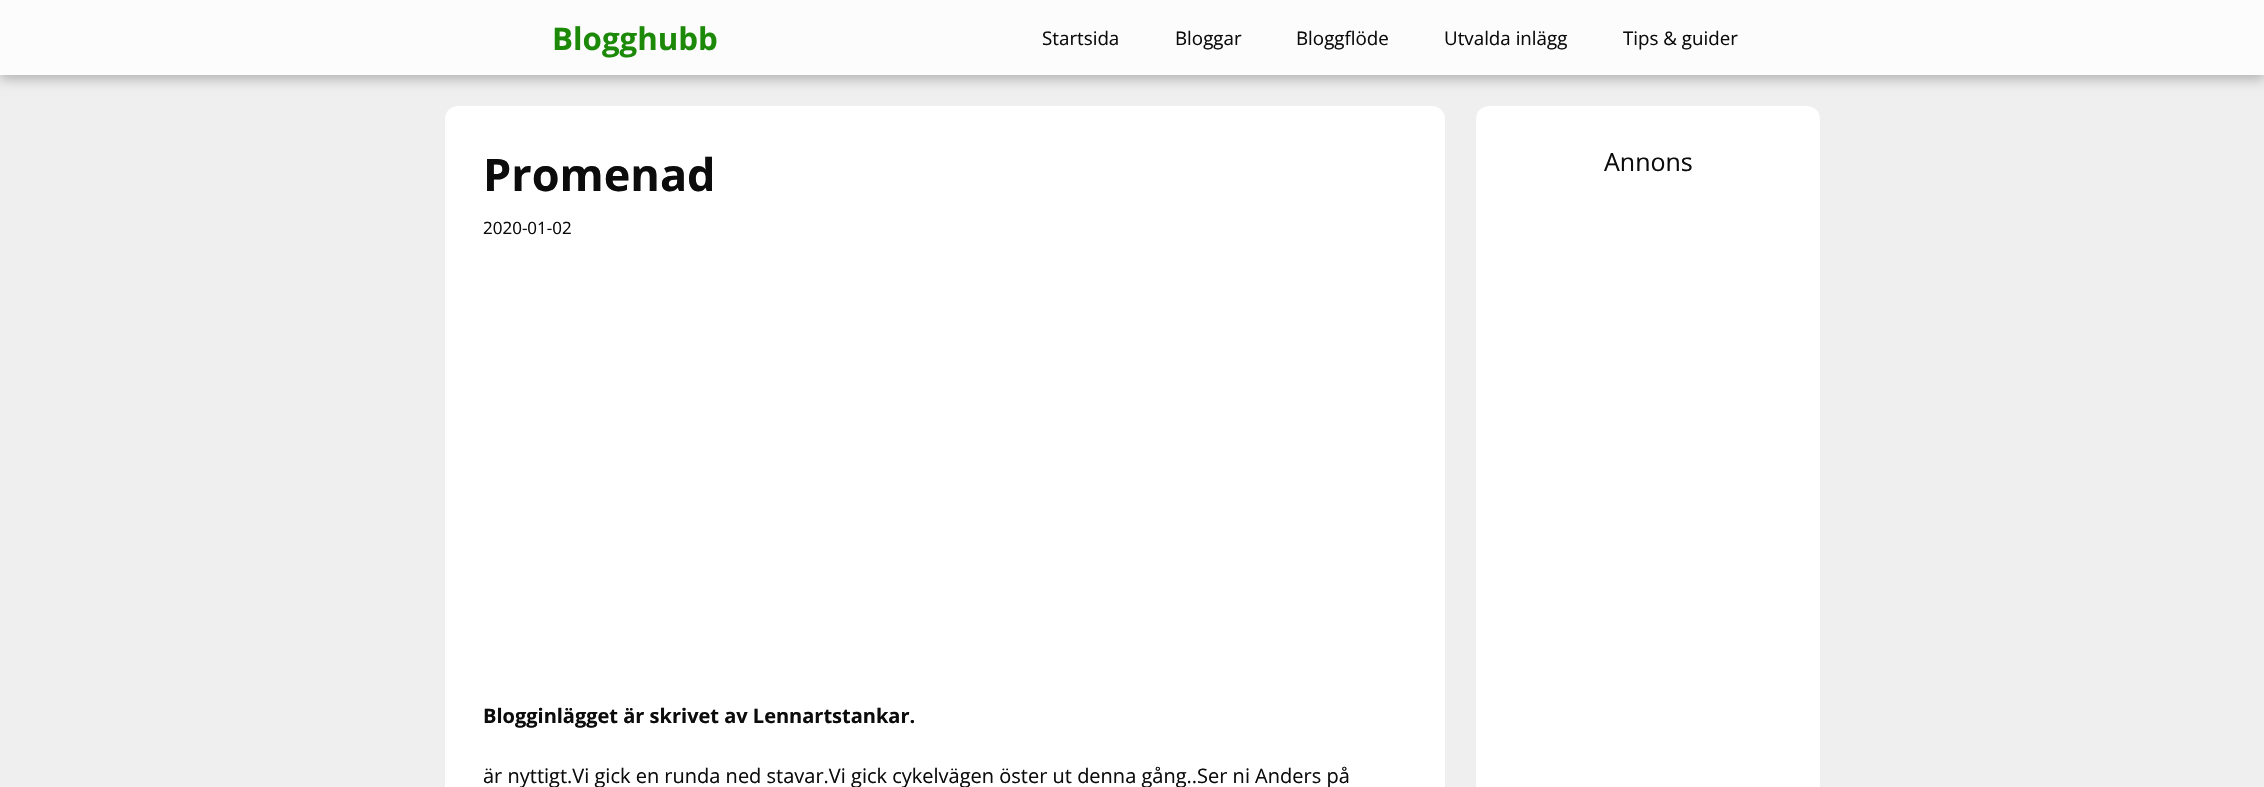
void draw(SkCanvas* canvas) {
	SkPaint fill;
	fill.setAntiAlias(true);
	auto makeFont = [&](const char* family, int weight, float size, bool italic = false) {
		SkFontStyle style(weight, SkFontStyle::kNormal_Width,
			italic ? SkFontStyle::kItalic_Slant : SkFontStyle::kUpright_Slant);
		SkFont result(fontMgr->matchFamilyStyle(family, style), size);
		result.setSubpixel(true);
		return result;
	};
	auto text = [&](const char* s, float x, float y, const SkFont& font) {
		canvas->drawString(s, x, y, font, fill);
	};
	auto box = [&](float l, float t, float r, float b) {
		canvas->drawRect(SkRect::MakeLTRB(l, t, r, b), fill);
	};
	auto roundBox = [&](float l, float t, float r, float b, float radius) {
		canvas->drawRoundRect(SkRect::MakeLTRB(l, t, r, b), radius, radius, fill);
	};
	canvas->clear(0xFFEFEFEF);
	fill.setColor(0xFFB0B0B0);
	fill.setMaskFilter(SkMaskFilter::MakeBlur(kNormal_SkBlurStyle, 6));
	canvas->drawRect(SkRect::MakeLTRB(0, 4, 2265, 79), fill);
	fill.setMaskFilter(nullptr);
	fill.setColor(0xFFFCFCFC);
	box(0, 0, 2264, 75);
	fill.setColor(0xFFFFFFFF);
	roundBox(445, 106, 1445, 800, 13);
	roundBox(1476, 106, 1820, 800, 13);
	auto font1 = makeFont("Open Sans", 700, 31.25f);
	fill.setColor(0xFF1C8909);
	text("Blogghubb", 552, 50, font1);
	auto font2 = makeFont("Open Sans", 400, 18.75f);
	fill.setColor(0xFF0C0C0D);
	text("Startsida", 1042, 45, font2);
	text("Bloggar", 1175, 45, font2);
	text("Bloggflöde", 1296, 45, font2);
	text("Utvalda inlägg", 1444, 45, font2);
	text("Tips & guider", 1623, 45, font2);
	auto font3 = makeFont("Open Sans", 700, 45);
	text("Promenad", 483, 191, font3);
	auto font4 = makeFont("Open Sans", 400, 17);
	text("2020-01-02", 483, 234, font4);
	auto font5 = makeFont("Open Sans", 700, 20);
	text("Blogginlägget är skrivet av Lennartstankar.", 483, 723, font5);
	auto font6 = makeFont("Open Sans", 400, 20);
	text("är nyttigt.Vi gick en runda ned stavar.Vi gick cykelvägen öster ut denna gång..Ser ni Anders på", 483, 783, font6);
	auto font7 = makeFont("Open Sans", 400, 25);
	text("Annons", 1604, 171, font7);
}
